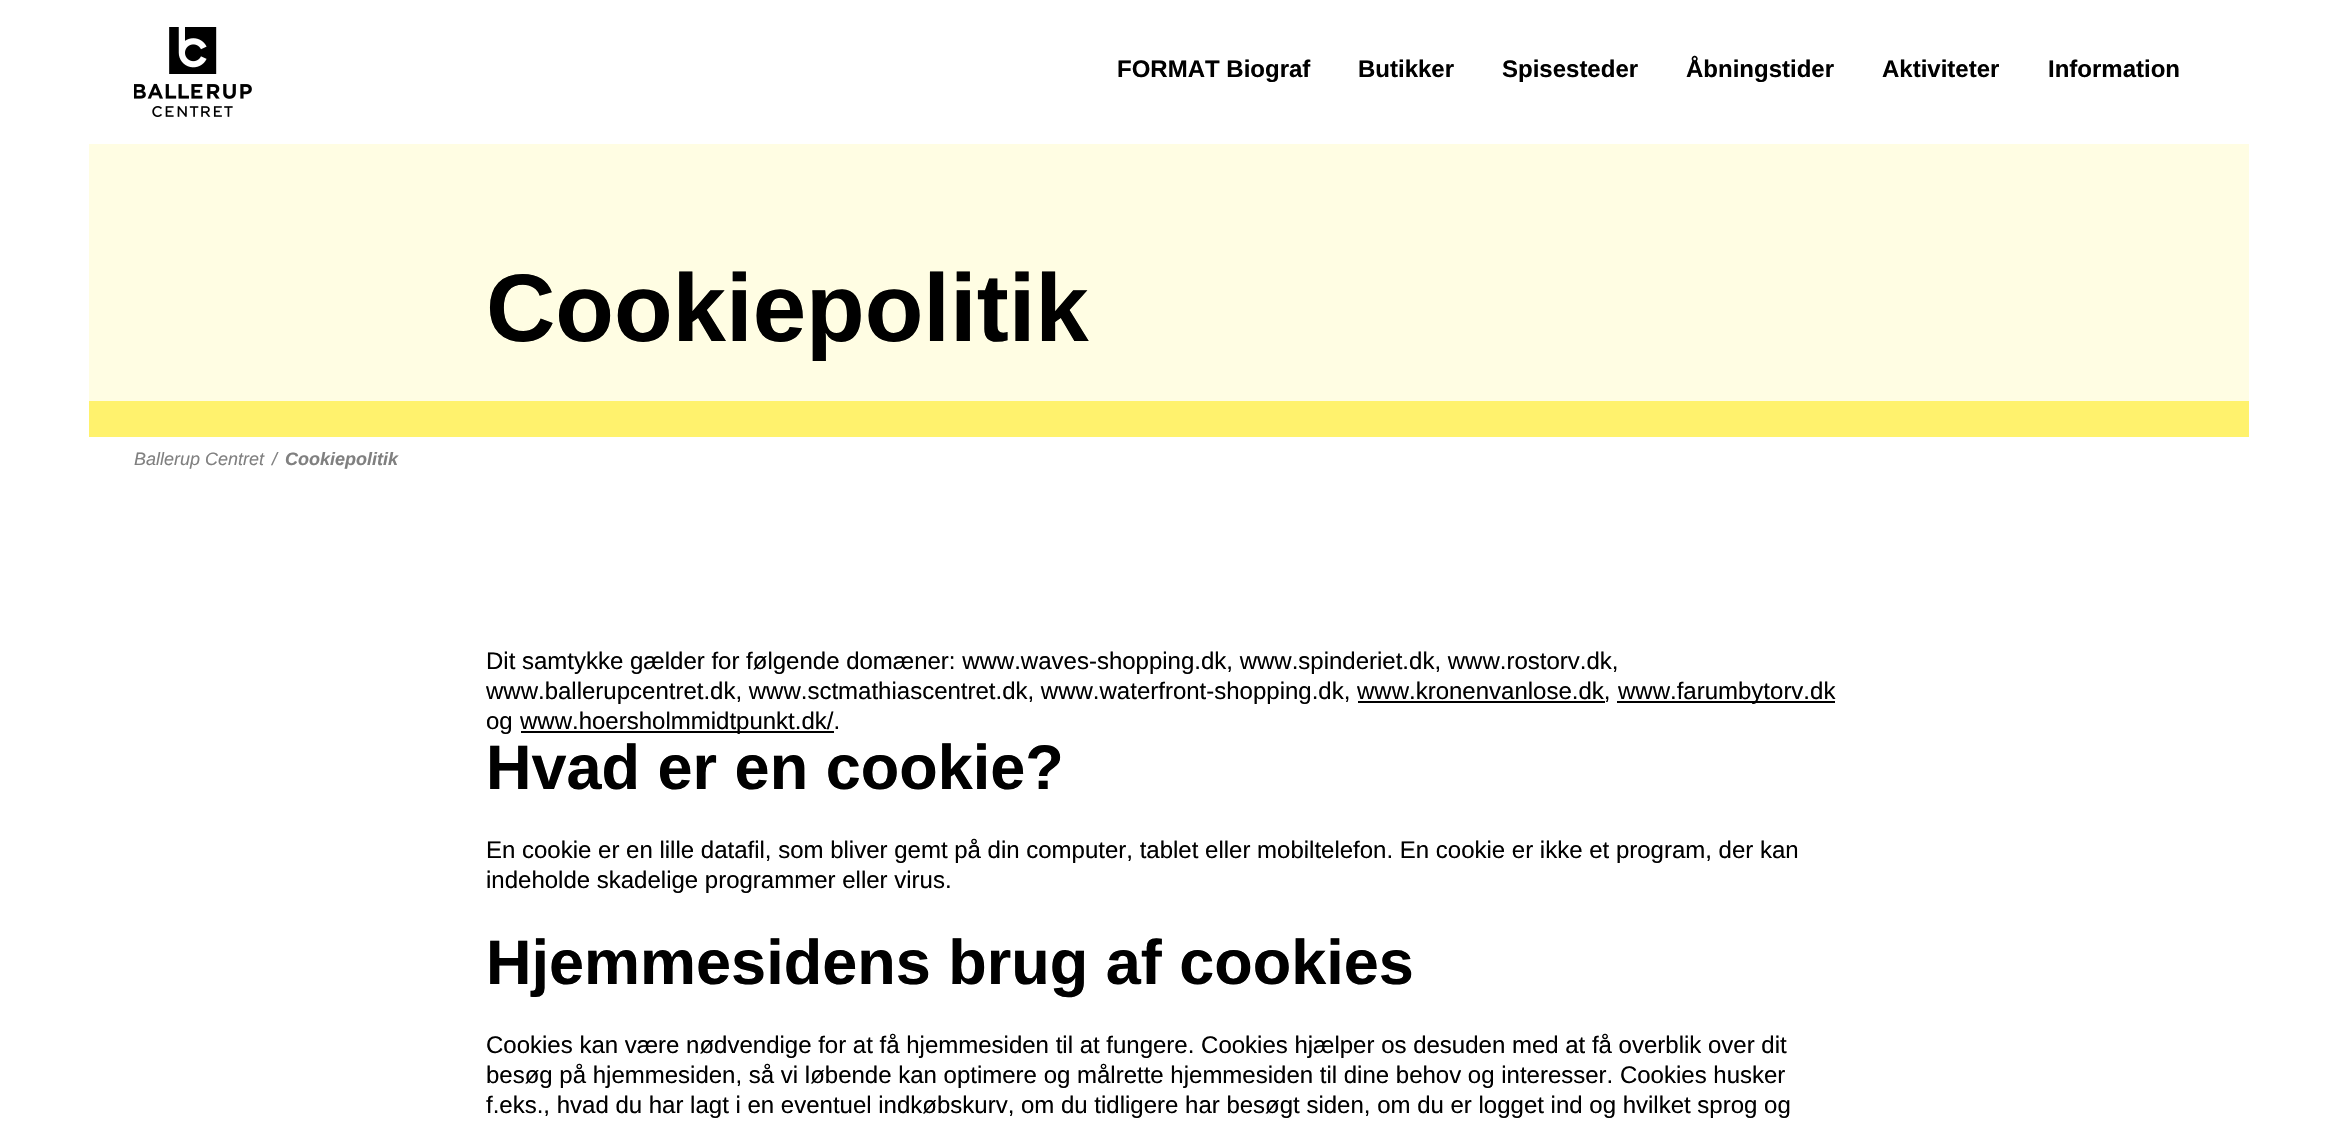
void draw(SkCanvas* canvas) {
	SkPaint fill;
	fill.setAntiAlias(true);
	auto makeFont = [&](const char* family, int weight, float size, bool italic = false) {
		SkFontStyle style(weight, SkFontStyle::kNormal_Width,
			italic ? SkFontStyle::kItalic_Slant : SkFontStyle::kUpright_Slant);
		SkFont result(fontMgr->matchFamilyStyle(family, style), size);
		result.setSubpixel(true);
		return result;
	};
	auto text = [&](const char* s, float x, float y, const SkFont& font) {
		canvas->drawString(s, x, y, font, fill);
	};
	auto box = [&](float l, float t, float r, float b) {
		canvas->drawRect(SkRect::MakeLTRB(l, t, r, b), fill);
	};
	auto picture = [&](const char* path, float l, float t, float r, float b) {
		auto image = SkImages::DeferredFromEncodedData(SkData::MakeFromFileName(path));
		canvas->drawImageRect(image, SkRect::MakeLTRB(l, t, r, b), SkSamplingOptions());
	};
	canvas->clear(0xFFFFFFFF);
	picture("image0.png", 134, 27, 252, 117);
	fill.setColor(0xFFFFFDE3);
	box(89, 144, 2249, 401);
	fill.setColor(0xFFFFF26D);
	box(89, 401, 2249, 437);
	fill.setColor(0xFF000000);
	box(1617, 701, 1835, 703);
	box(1358, 701, 1605, 703);
	box(521, 731, 834, 733);
	auto font1 = makeFont("Liberation Sans", 700, 24);
	text("FORMAT Biograf", 1117, 77, font1);
	text("Butikker", 1358, 77, font1);
	text("Spisesteder", 1502, 77, font1);
	text("Åbningstider", 1686, 77, font1);
	text("Aktiviteter", 1882, 77, font1);
	text("Information", 2048, 77, font1);
	auto font2 = makeFont("Liberation Sans", 700, 96);
	text("Cookiepolitik", 486, 341, font2);
	auto font3 = makeFont("Liberation Sans", 400, 18, true);
	fill.setColor(0xFF808080);
	text("Ballerup Centret", 134, 465, font3);
	text("/", 272, 465, font3);
	auto font4 = makeFont("Liberation Sans", 700, 18, true);
	text("Cookiepolitik", 285, 465, font4);
	auto font5 = makeFont("Liberation Sans", 400, 24);
	fill.setColor(0xFF000000);
	text("Dit samtykke gælder for følgende domæner: www.waves-shopping.dk, www.spinderiet.dk, www.rostorv.dk,", 486, 669, font5);
	text("www.ballerupcentret.dk, www.sctmathiascentret.dk, www.waterfront-shopping.dk, www.kronenvanlose.dk,", 486, 699, font5);
	text("www.farumbytorv.dk", 1618, 699, font5);
	text("og", 486, 729, font5);
	text("www.hoersholmmidtpunkt.dk/.", 520, 729, font5);
	auto font6 = makeFont("Liberation Sans", 700, 63);
	text("Hvad er en cookie?", 486, 789, font6);
	text("En cookie er en lille datafil, som bliver gemt på din computer, tablet eller mobiltelefon. En cookie er ikke et program, der kan", 486, 858, font5);
	text("indeholde skadelige programmer eller virus.", 486, 888, font5);
	text("Hjemmesidens brug af cookies", 486, 984, font6);
	text("Cookies kan være nødvendige for at få hjemmesiden til at fungere. Cookies hjælper os desuden med at få overblik over dit", 486, 1053, font5);
	text("besøg på hjemmesiden, så vi løbende kan optimere og målrette hjemmesiden til dine behov og interesser. Cookies husker", 486, 1083, font5);
	text("f.eks., hvad du har lagt i en eventuel indkøbskurv, om du tidligere har besøgt siden, om du er logget ind og hvilket sprog og", 486, 1113, font5);
}
